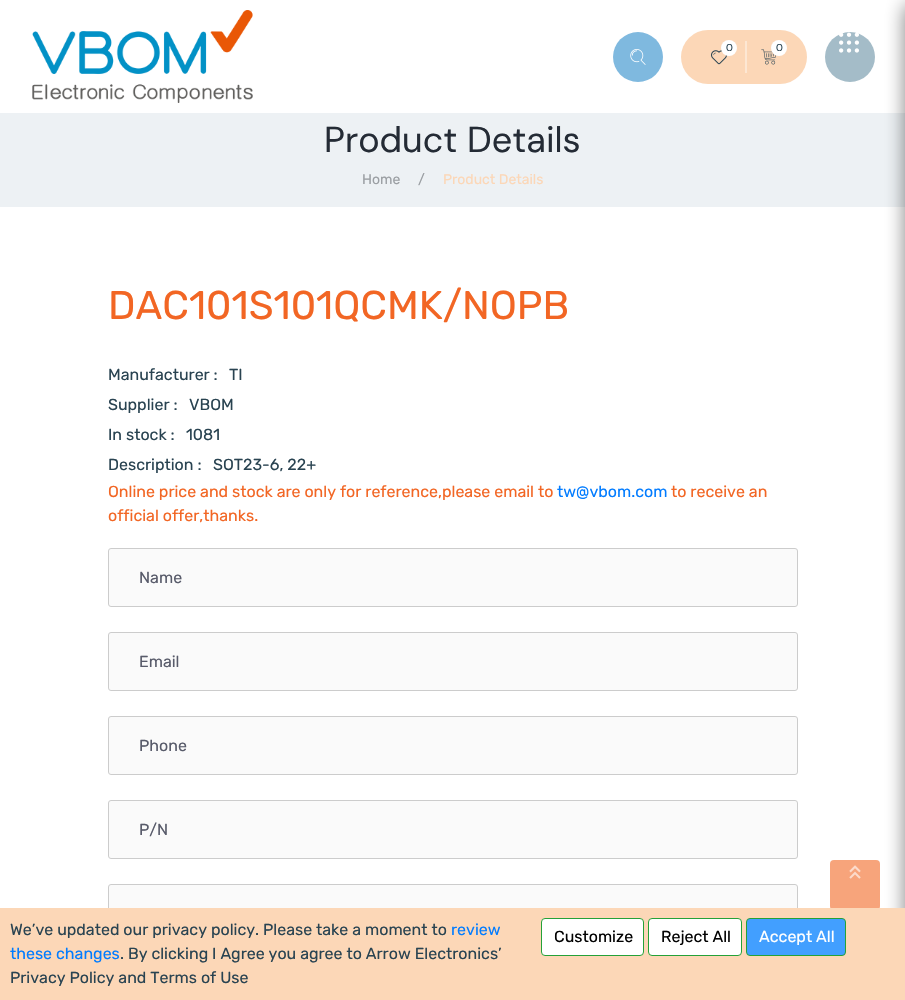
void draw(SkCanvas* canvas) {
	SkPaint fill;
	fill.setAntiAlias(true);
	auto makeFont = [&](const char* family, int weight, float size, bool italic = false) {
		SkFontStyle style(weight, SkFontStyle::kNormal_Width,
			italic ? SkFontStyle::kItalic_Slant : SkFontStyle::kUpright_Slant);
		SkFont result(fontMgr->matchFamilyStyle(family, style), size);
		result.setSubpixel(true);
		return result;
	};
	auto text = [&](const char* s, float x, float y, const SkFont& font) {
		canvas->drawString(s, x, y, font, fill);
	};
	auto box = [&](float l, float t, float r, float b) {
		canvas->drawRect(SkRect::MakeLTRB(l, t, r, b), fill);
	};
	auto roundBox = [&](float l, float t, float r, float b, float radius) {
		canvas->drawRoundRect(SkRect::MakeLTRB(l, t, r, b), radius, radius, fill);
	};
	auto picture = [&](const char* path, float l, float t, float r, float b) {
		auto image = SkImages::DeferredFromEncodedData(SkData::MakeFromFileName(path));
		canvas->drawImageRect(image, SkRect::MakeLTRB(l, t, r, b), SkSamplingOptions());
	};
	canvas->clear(0xFFFFFFFF);
	picture("image0.png", 32, 10, 253, 103);
	fill.setColor(0xFF7FB9DF);
	canvas->drawCircle(638, 57, 25, fill);
	picture("image1.png", 630, 49, 646, 65);
	fill.setColor(0xFFFCD7B7);
	roundBox(681, 30, 807, 84, 27);
	picture("image2.png", 711, 50, 727, 65);
	fill.setColor(0xFFFFFFFF);
	canvas->drawCircle(729, 48, 8, fill);
	fill.setColor(0xFFFDE7D3);
	box(745, 41, 747, 73);
	picture("image3.png", 761, 49, 777, 65);
	fill.setColor(0xFFFFFFFF);
	canvas->drawCircle(779, 48, 8, fill);
	fill.setColor(0xFFA4BCC8);
	canvas->drawCircle(850, 57, 25, fill);
	picture("image4.png", 839, 32, 859, 53);
	fill.setColor(0xFFEDF1F4);
	box(0, 113, 905, 207);
	fill.setColor(0x80020202);
	fill.setMaskFilter(SkMaskFilter::MakeBlur(kNormal_SkBlurStyle, 10));
	canvas->drawRect(SkRect::MakeLTRB(905, 5, 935, 995), fill);
	fill.setMaskFilter(nullptr);
	fill.setColor(0xFFFAFAFA);
	canvas->drawRoundRect(SkRect::MakeLTRB(108.5f, 548.5f, 797.5f, 606.5f), 2.5f, 2.5f, fill);
	fill.setStyle(SkPaint::kStroke_Style);
	fill.setStrokeWidth(1);
	fill.setColor(0xFFCCCCCC);
	canvas->drawRoundRect(SkRect::MakeLTRB(108.5f, 548.5f, 797.5f, 606.5f), 2.5f, 2.5f, fill);
	fill.setStyle(SkPaint::kFill_Style);
	fill.setColor(0xFFFAFAFA);
	canvas->drawRoundRect(SkRect::MakeLTRB(108.5f, 632.5f, 797.5f, 690.5f), 2.5f, 2.5f, fill);
	fill.setStyle(SkPaint::kStroke_Style);
	fill.setColor(0xFFCCCCCC);
	canvas->drawRoundRect(SkRect::MakeLTRB(108.5f, 632.5f, 797.5f, 690.5f), 2.5f, 2.5f, fill);
	fill.setStyle(SkPaint::kFill_Style);
	fill.setColor(0xFFFAFAFA);
	canvas->drawRoundRect(SkRect::MakeLTRB(108.5f, 716.5f, 797.5f, 774.5f), 2.5f, 2.5f, fill);
	fill.setStyle(SkPaint::kStroke_Style);
	fill.setColor(0xFFCCCCCC);
	canvas->drawRoundRect(SkRect::MakeLTRB(108.5f, 716.5f, 797.5f, 774.5f), 2.5f, 2.5f, fill);
	fill.setStyle(SkPaint::kFill_Style);
	fill.setColor(0xFFFAFAFA);
	canvas->drawRoundRect(SkRect::MakeLTRB(108.5f, 800.5f, 797.5f, 858.5f), 2.5f, 2.5f, fill);
	fill.setStyle(SkPaint::kStroke_Style);
	fill.setColor(0xFFCCCCCC);
	canvas->drawRoundRect(SkRect::MakeLTRB(108.5f, 800.5f, 797.5f, 858.5f), 2.5f, 2.5f, fill);
	fill.setStyle(SkPaint::kFill_Style);
	fill.setColor(0xFFFAFAFA);
	canvas->drawRoundRect(SkRect::MakeLTRB(108.5f, 884.5f, 797.5f, 942.5f), 2.5f, 2.5f, fill);
	fill.setStyle(SkPaint::kStroke_Style);
	fill.setColor(0xFFCCCCCC);
	canvas->drawRoundRect(SkRect::MakeLTRB(108.5f, 884.5f, 797.5f, 942.5f), 2.5f, 2.5f, fill);
	fill.setStyle(SkPaint::kFill_Style);
	fill.setColor(0xFFF7A47B);
	roundBox(830, 860, 880, 910, 4);
	picture("image5.png", 849, 865, 861, 879);
	fill.setColor(0xFFFCD7B7);
	box(0, 908, 905, 1000);
	fill.setColor(0xFFFFFFFF);
	canvas->drawRoundRect(SkRect::MakeLTRB(541.5f, 918.5f, 643.5f, 955.5f), 3.5f, 3.5f, fill);
	fill.setStyle(SkPaint::kStroke_Style);
	fill.setColor(0xFF25A138);
	canvas->drawRoundRect(SkRect::MakeLTRB(541.5f, 918.5f, 643.5f, 955.5f), 3.5f, 3.5f, fill);
	fill.setStyle(SkPaint::kFill_Style);
	fill.setColor(0xFFFFFFFF);
	canvas->drawRoundRect(SkRect::MakeLTRB(648.5f, 918.5f, 741.5f, 955.5f), 3.5f, 3.5f, fill);
	fill.setStyle(SkPaint::kStroke_Style);
	fill.setColor(0xFF25A138);
	canvas->drawRoundRect(SkRect::MakeLTRB(648.5f, 918.5f, 741.5f, 955.5f), 3.5f, 3.5f, fill);
	fill.setStyle(SkPaint::kFill_Style);
	fill.setColor(0xFF429FFF);
	canvas->drawRoundRect(SkRect::MakeLTRB(746.5f, 918.5f, 845.5f, 955.5f), 3.5f, 3.5f, fill);
	fill.setStyle(SkPaint::kStroke_Style);
	fill.setColor(0xFF25A138);
	canvas->drawRoundRect(SkRect::MakeLTRB(746.5f, 918.5f, 845.5f, 955.5f), 3.5f, 3.5f, fill);
	auto font1 = makeFont("DM Sans", 400, 10);
	fill.setStyle(SkPaint::kFill_Style);
	fill.setColor(0xFF294351);
	text("0", 726, 51, font1);
	text("0", 776, 51, font1);
	auto font2 = makeFont("DM Sans", 400, 36);
	fill.setColor(0xFF242B35);
	text("Product Details", 324, 152, font2);
	auto font3 = makeFont("Rubik", 400, 14);
	fill.setColor(0xFF9B9FA3);
	text("Home", 362, 184, font3);
	text("/", 418, 184, font3);
	fill.setColor(0xFFFCD7B7);
	text("Product Details", 443, 184, font3);
	auto font4 = makeFont("Rubik", 400, 40);
	fill.setColor(0xFFF26624);
	text("DAC101S101QCMK/NOPB", 108, 319, font4);
	auto font5 = makeFont("Rubik", 400, 16);
	fill.setColor(0xFF294351);
	text("Manufacturer :", 108, 380, font5);
	text("TI", 229, 380, font5);
	text("Supplier :", 108, 410, font5);
	text("VBOM", 189, 410, font5);
	text("In stock :", 108, 440, font5);
	text("1081", 186, 440, font5);
	text("Description :", 108, 470, font5);
	text("SOT23-6, 22+", 213, 470, font5);
	fill.setColor(0xFFF26624);
	text("Online price and stock are only for reference,please email to", 108, 497, font5);
	fill.setColor(0xFF027CFF);
	text("tw@vbom.com", 557, 497, font5);
	fill.setColor(0xFFF26624);
	text("to receive an", 671, 497, font5);
	text("official offer,thanks.", 108, 521, font5);
	fill.setColor(0xFF585B6A);
	text("Name", 139, 583, font5);
	text("Email", 139, 667, font5);
	text("Phone", 139, 751, font5);
	text("P/N", 139, 835, font5);
	fill.setColor(0xFF294351);
	text("We’ve updated our privacy policy. Please take a moment to", 10, 935, font5);
	fill.setColor(0xFF027CFF);
	text("review", 451, 935, font5);
	text("these changes", 10, 959, font5);
	fill.setColor(0xFF294351);
	text(". By clicking I Agree you agree to Arrow Electronics’", 120, 959, font5);
	text("Privacy Policy and Terms of Use", 10, 983, font5);
	fill.setColor(0xFF020202);
	text("Customize", 554, 942, font5);
	text("Reject All", 661, 942, font5);
	fill.setColor(0xFFFFFFFF);
	text("Accept All", 759, 942, font5);
}
